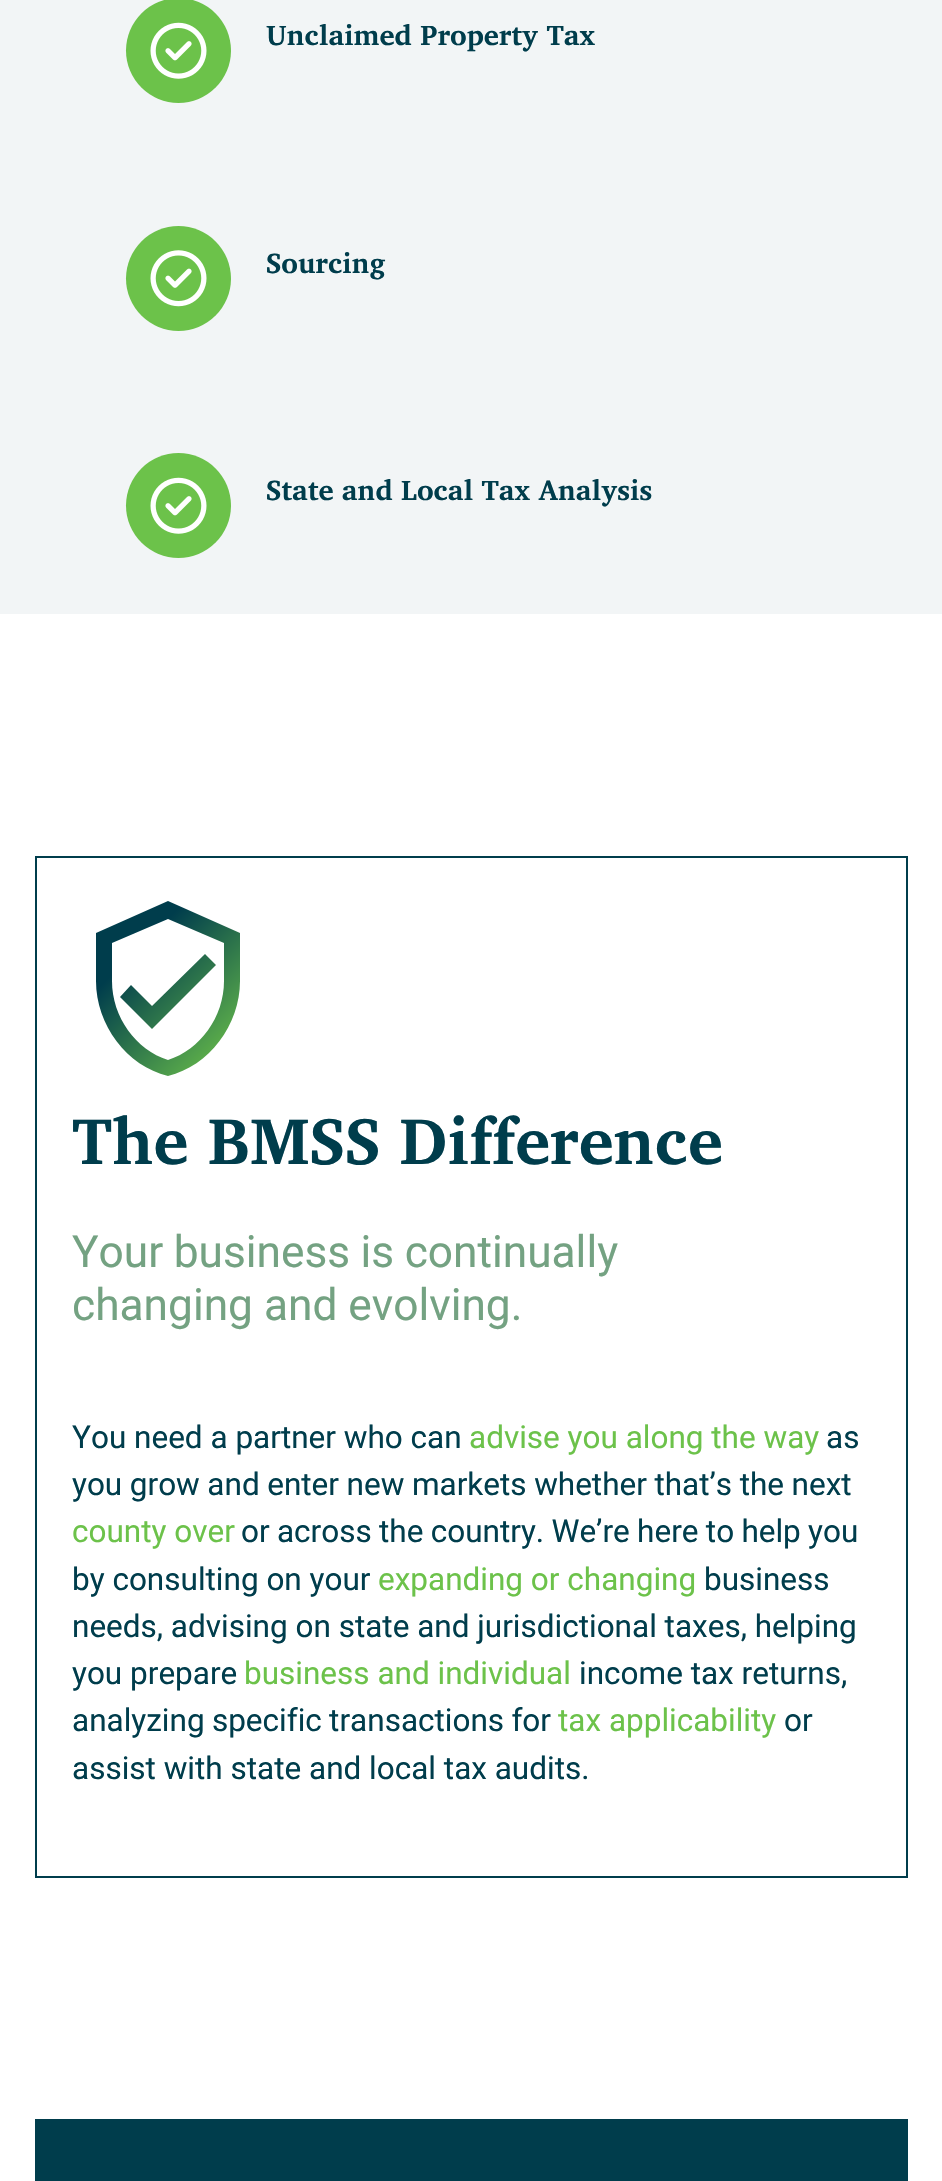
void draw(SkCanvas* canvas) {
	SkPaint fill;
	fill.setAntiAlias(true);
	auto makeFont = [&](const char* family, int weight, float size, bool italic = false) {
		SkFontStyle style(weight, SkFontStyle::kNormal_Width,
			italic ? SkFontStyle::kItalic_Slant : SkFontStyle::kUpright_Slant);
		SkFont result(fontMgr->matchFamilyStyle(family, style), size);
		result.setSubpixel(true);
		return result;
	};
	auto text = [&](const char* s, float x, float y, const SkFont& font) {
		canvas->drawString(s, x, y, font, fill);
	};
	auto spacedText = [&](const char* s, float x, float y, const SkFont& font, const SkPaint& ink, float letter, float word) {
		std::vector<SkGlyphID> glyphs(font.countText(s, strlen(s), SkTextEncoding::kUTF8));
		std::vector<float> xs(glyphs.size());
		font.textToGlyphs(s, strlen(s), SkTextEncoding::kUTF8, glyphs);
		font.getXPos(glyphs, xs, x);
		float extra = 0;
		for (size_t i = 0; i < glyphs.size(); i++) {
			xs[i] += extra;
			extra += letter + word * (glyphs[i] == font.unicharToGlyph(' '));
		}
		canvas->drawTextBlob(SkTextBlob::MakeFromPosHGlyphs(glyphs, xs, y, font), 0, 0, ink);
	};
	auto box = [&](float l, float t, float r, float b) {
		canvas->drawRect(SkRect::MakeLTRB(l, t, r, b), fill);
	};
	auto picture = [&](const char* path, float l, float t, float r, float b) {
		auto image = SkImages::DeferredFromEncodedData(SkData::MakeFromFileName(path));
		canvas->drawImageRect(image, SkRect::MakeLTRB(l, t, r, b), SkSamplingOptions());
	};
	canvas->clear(0xFFFFFFFF);
	fill.setColor(0xFFF2F5F6);
	box(0, 0, 942, 614);
	fill.setColor(0xFF6CC24A);
	canvas->drawCircle(178.5f, 50.5f, 52.5f, fill);
	picture("image0.png", 150, 22, 207, 79);
	canvas->drawCircle(178.5f, 278.5f, 52.5f, fill);
	picture("image1.png", 150, 250, 207, 307);
	canvas->drawCircle(178.5f, 505.5f, 52.5f, fill);
	picture("image0.png", 150, 477, 207, 534);
	fill.setStyle(SkPaint::kStroke_Style);
	fill.setStrokeWidth(2);
	fill.setColor(0xFF003D4C);
	canvas->drawRect(SkRect::MakeLTRB(36, 857, 907, 1877), fill);
	fill.setStyle(SkPaint::kFill_Style);
	{
		const SkColor colors[] = {0xFF003D4C, 0xFF6CC24A};
		const float stops[] = {0, 1};
		const SkPoint ends[] = {{131, 956}, {239, 1064}};
		fill.setShader(SkGradientShader::MakeLinear(ends, colors, stops, 2, SkTileMode::kClamp));
		fill.setAlpha(255);
	}
	canvas->drawPath(SkPathBuilder().moveTo(168, 901).lineTo(96, 933).lineTo(96, 981).cubicTo(96, 1025, 127, 1066, 168, 1076).cubicTo(209, 1066, 240, 1025, 240, 981).lineTo(240, 933).close().moveTo(224, 981).cubicTo(224, 1017, 200, 1050, 168, 1060).cubicTo(136, 1050, 112, 1017, 112, 981).lineTo(112, 943).lineTo(168, 919).lineTo(224, 943).close().moveTo(131, 985).lineTo(120, 997).lineTo(152, 1029).lineTo(216, 965).lineTo(205, 954).lineTo(152, 1006).close().detach(), fill);
	fill.setShader(nullptr);
	fill.setColor(0xFF003D4C);
	box(35, 2119, 908, 2181);
	auto font1 = makeFont("Charis SIL", 700, 28.5f);
	text("Unclaimed Property Tax", 266, 45, font1);
	text("Sourcing", 266, 273, font1);
	text("State and Local Tax Analysis", 266, 500, font1);
	auto font2 = makeFont("Charis SIL", 700, 66);
	text("The BMSS Difference", 72, 1164, font2);
	auto font3 = makeFont("Roboto", 400, 44.25f);
	fill.setColor(0xFF74A282);
	spacedText("Your business is continually", 72, 1267, font3, fill, 0, -0.5f);
	text("changing and evolving.", 72, 1320, font3);
	auto font4 = makeFont("Roboto", 400, 31.5f);
	fill.setColor(0xFF003D4C);
	text("You need a partner who can", 72, 1448, font4);
	fill.setColor(0xFF6CC24A);
	text("advise you along the way", 469, 1448, font4);
	fill.setColor(0xFF003D4C);
	text("as", 826, 1448, font4);
	spacedText("you grow and enter new markets whether that’s the next", 72, 1495, font4, fill, 0, -0.25f);
	fill.setColor(0xFF6CC24A);
	text("county over", 72, 1542, font4);
	fill.setColor(0xFF003D4C);
	spacedText("or across the country. We’re here to help you", 241, 1542, font4, fill, 0, -0.5f);
	text("by consulting on your", 72, 1590, font4);
	fill.setColor(0xFF6CC24A);
	text("expanding or changing", 378, 1590, font4);
	fill.setColor(0xFF003D4C);
	text("business", 704, 1590, font4);
	text("needs, advising on state and jurisdictional taxes, helping", 72, 1637, font4);
	text("you prepare", 72, 1684, font4);
	fill.setColor(0xFF6CC24A);
	text("business and individual", 244, 1684, font4);
	fill.setColor(0xFF003D4C);
	text("income tax returns,", 579, 1684, font4);
	spacedText("analyzing specific transactions for", 72, 1731, font4, fill, 0, -0.5f);
	fill.setColor(0xFF6CC24A);
	text("tax applicability", 558, 1731, font4);
	fill.setColor(0xFF003D4C);
	text("or", 784, 1731, font4);
	text("assist with state and local tax audits.", 72, 1779, font4);
}
